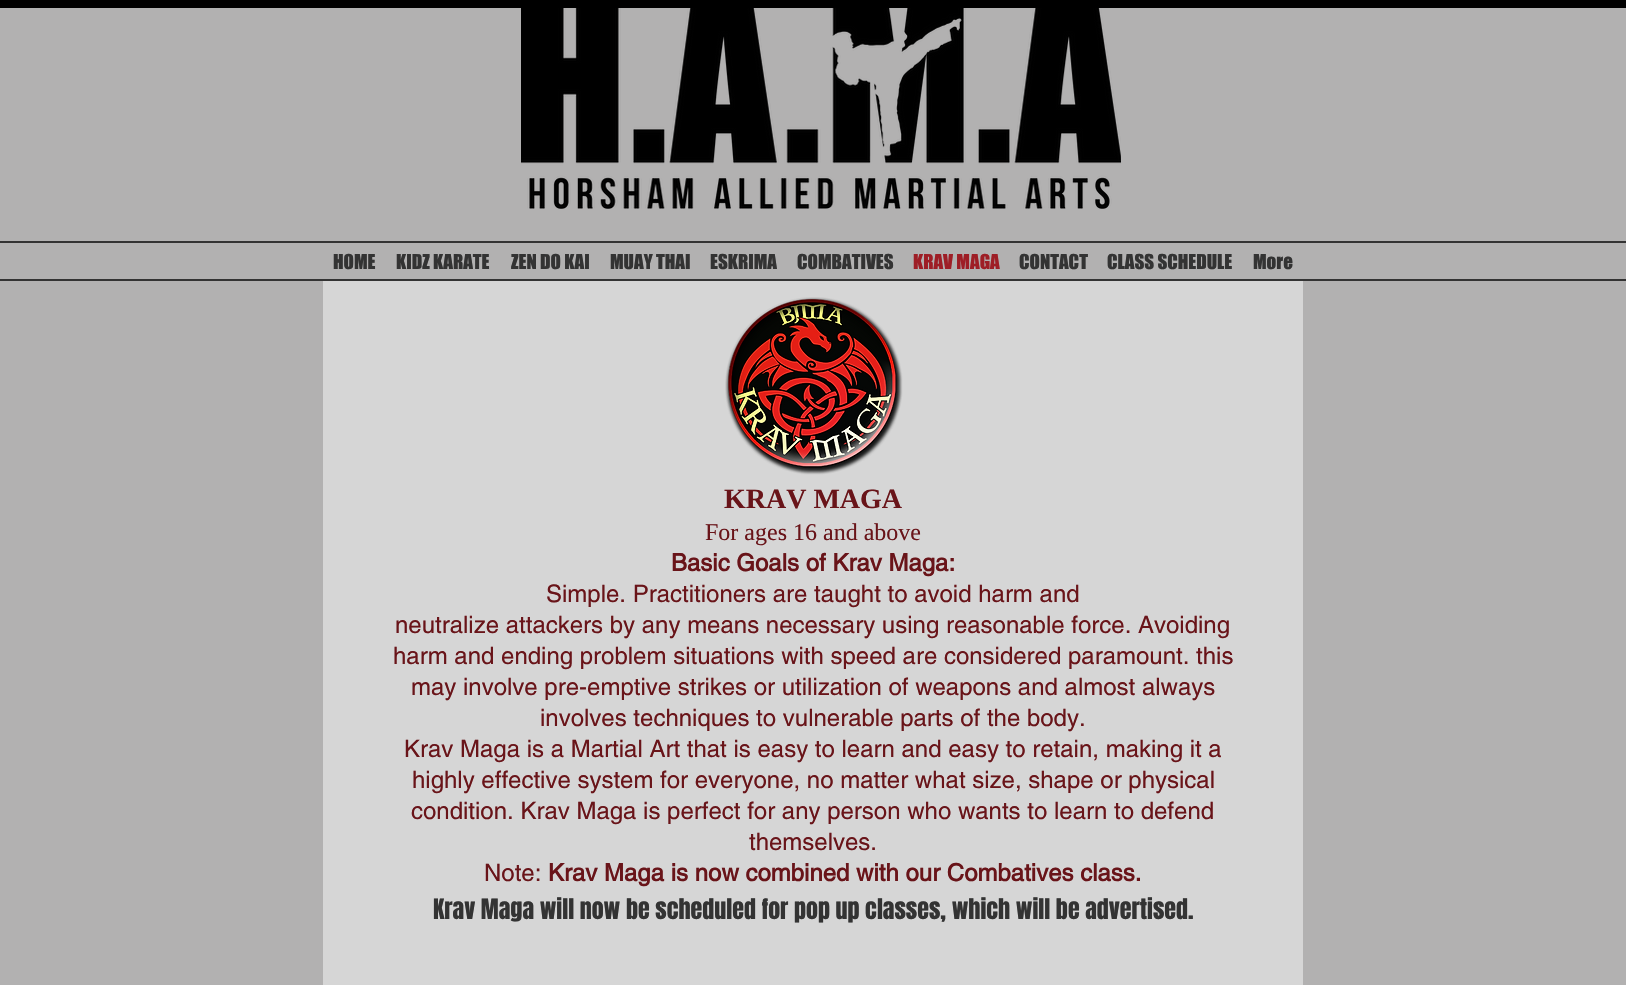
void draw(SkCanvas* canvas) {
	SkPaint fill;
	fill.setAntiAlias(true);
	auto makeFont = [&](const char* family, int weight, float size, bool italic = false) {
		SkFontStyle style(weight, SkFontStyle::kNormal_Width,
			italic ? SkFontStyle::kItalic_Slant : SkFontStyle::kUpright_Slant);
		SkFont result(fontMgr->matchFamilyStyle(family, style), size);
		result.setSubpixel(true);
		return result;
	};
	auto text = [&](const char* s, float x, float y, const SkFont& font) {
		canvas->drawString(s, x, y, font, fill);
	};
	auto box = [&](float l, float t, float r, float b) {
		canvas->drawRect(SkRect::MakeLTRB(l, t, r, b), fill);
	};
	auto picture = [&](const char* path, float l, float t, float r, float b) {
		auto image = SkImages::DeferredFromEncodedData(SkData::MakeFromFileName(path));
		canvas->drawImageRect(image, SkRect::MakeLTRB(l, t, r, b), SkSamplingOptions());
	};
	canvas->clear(0xFFB2B1B1);
	fill.setColor(0xFF000000);
	box(0, 0, 1626, 8);
	picture("image0.png", 521, 8, 1121, 209);
	fill.setColor(0xFF333333);
	box(0, 241, 1626, 243);
	box(0, 279, 1626, 281);
	fill.setColor(0xFFD6D6D6);
	box(323, 281, 1303, 985);
	picture("image1.png", 725, 297, 903, 475);
	auto font1 = makeFont("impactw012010", 400, 19);
	fill.setColor(0xFF333333);
	text("HOME", 333, 269, font1);
	text("KIDZ KARATE", 396, 269, font1);
	text("ZEN DO KAI", 511, 269, font1);
	text("MUAY THAI", 610, 269, font1);
	text("ESKRIMA", 710, 269, font1);
	text("COMBATIVES", 797, 269, font1);
	fill.setColor(0xFF9E1E26);
	text("KRAV MAGA", 913, 269, font1);
	fill.setColor(0xFF333333);
	text("CONTACT", 1019, 269, font1);
	text("CLASS SCHEDULE", 1107, 269, font1);
	text("More", 1253, 269, font1);
	auto font2 = makeFont("Liberation Serif", 700, 28);
	fill.setColor(0xFF691419);
	text("KRAV MAGA", 724, 508, font2);
	auto font3 = makeFont("Liberation Serif", 400, 24);
	text("For ages 16 and above", 705, 540, font3);
	auto font4 = makeFont("helvetica", 700, 24);
	text("Basic Goals of Krav Maga:", 671, 571, font4);
	auto font5 = makeFont("helvetica", 400, 24);
	text("Simple. Practitioners are taught to avoid harm and", 546, 602, font5);
	text("neutralize attackers by any means necessary using reasonable force. Avoiding", 395, 633, font5);
	text("harm and ending problem situations with speed are considered paramount. this", 393, 664, font5);
	text("may involve pre-emptive strikes or utilization of weapons and almost always", 411, 695, font5);
	text("involves techniques to vulnerable parts of the body.", 540, 726, font5);
	text("Krav Maga is a Martial Art that is easy to learn and easy to retain, making it a", 404, 757, font5);
	text("highly effective system for everyone, no matter what size, shape or physical", 412, 788, font5);
	text("condition. Krav Maga is perfect for any person who wants to learn to defend", 411, 819, font5);
	text("themselves.", 749, 850, font5);
	text("Note:", 484, 881, font5);
	text("Krav Maga is now combined with our Combatives class.", 548, 881, font4);
	auto font6 = makeFont("Anton", 400, 24);
	fill.setColor(0xFF333333);
	text("Krav Maga will now be scheduled for pop up classes, which will be advertised.", 433, 919, font6);
}
